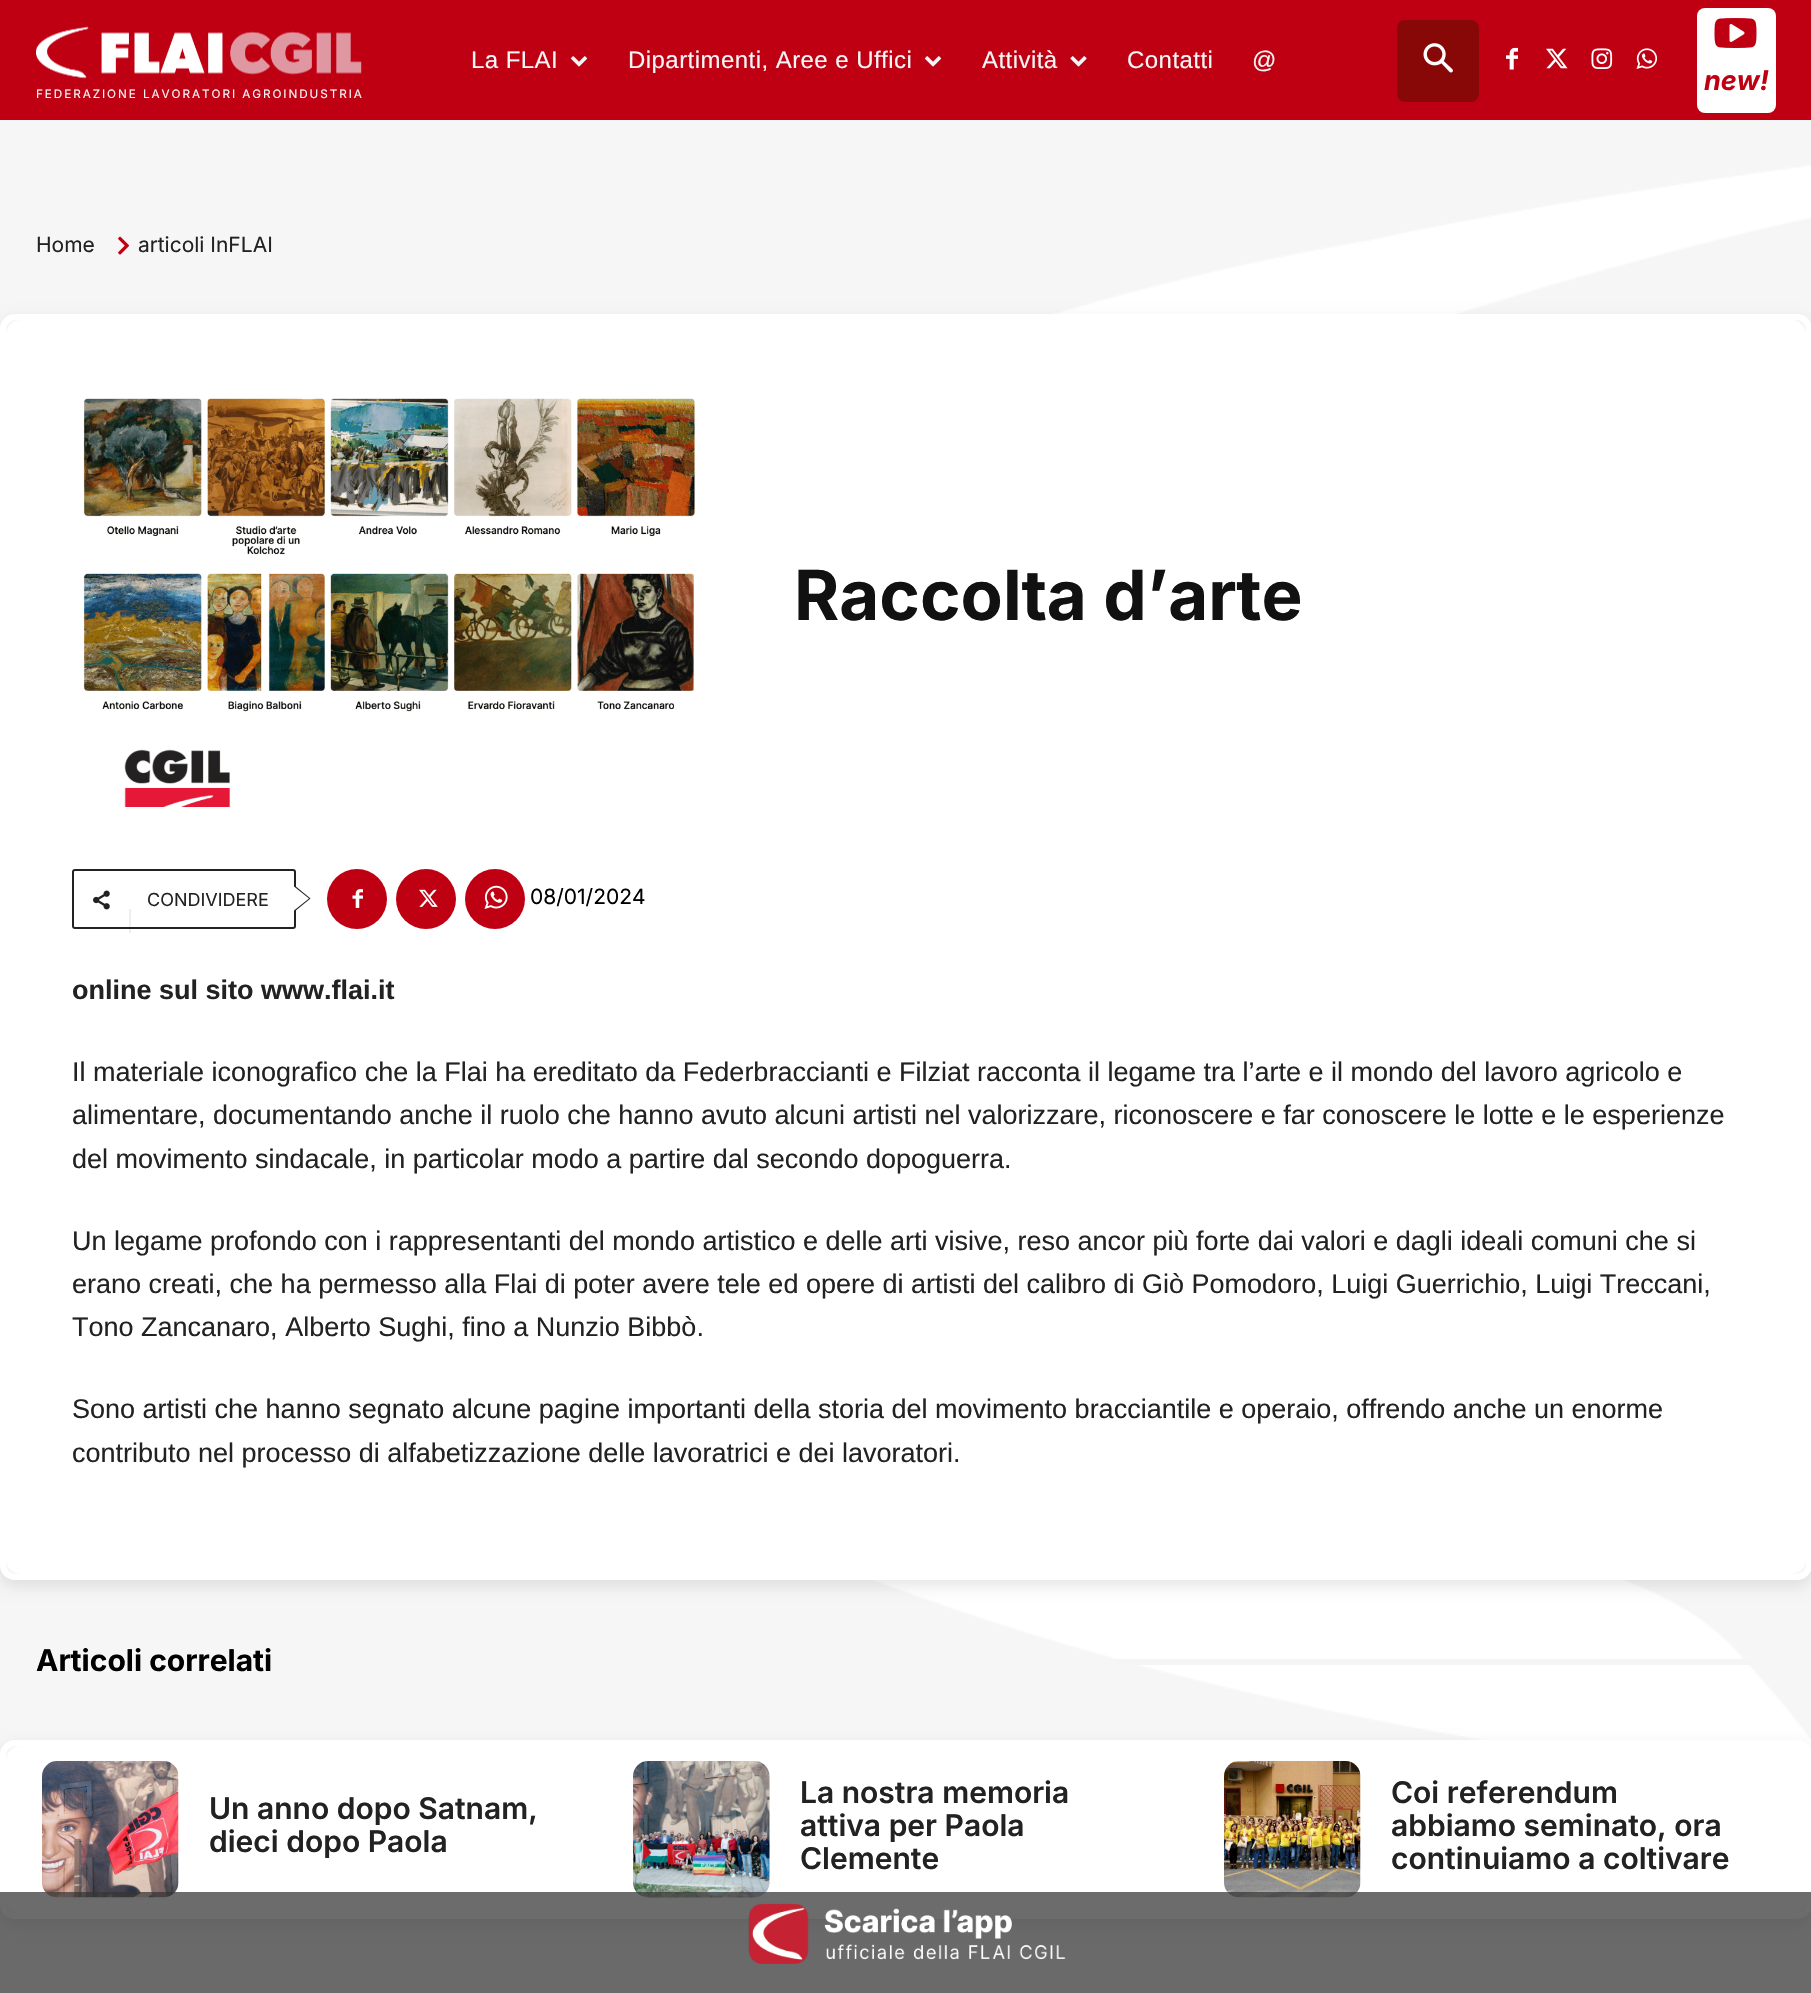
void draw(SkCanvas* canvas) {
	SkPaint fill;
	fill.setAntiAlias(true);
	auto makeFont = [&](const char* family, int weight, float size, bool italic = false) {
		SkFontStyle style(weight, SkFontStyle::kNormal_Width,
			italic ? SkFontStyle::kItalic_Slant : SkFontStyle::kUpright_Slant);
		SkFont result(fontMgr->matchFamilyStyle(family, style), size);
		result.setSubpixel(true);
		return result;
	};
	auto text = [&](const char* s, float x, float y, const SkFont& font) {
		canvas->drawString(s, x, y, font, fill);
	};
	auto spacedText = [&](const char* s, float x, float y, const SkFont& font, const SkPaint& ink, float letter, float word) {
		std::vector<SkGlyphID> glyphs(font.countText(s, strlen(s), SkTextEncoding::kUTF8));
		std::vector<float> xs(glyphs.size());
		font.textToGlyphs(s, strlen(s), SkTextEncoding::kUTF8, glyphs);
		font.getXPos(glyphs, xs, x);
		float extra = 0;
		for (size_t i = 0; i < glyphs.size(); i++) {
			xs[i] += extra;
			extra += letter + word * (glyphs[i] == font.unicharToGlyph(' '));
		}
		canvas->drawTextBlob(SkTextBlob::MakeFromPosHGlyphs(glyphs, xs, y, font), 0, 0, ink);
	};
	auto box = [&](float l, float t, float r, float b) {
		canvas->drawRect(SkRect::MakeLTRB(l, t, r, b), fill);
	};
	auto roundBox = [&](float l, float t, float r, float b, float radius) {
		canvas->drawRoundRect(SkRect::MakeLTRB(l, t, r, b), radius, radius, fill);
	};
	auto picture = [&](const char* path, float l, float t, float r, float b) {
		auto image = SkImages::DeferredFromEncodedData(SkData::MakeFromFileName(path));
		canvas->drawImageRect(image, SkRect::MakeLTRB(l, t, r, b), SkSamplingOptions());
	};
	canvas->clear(0xFFF6F6F6);
	fill.setColor(0xFFBF0013);
	box(0, 0, 1811, 120);
	picture("image0.png", 570, 56, 588, 67);
	picture("image0.png", 924, 56, 942, 67);
	picture("image1.png", 1070, 56, 1087, 67);
	fill.setColor(0xFF880808);
	roundBox(1397, 20, 1479, 102, 8);
	picture("image2.png", 1423, 43, 1453, 73);
	picture("image3.png", 1506, 47, 1518, 70);
	picture("image4.png", 1546, 48, 1568, 69);
	picture("image5.png", 1591, 48, 1613, 69);
	picture("image6.png", 1636, 48, 1658, 69);
	fill.setColor(0xFFFFFFFF);
	roundBox(1697, 8, 1776, 113, 8);
	picture("image7.png", 1714, 18, 1757, 48);
	picture("image8.png", 36, 26, 362, 79);
	picture("image9.png", 118, 236, 129, 255);
	picture("image19.png", 870, 165, 1811, 1761);
	canvas->save();
	canvas->clipPath(SkPathBuilder(SkPathFillType::kEvenOdd).moveTo(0, 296).lineTo(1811, 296).lineTo(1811, 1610).lineTo(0, 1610).close().moveTo(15, 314).lineTo(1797, 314).cubicTo(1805.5f, 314, 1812, 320.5f, 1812, 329).lineTo(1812, 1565).cubicTo(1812, 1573.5f, 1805.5f, 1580, 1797, 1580).lineTo(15, 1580).cubicTo(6.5f, 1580, 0, 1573.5f, 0, 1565).lineTo(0, 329).cubicTo(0, 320.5f, 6.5f, 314, 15, 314).close().detach(), true);
	fill.setColor(0x1A000000);
	fill.setMaskFilter(SkMaskFilter::MakeBlur(kNormal_SkBlurStyle, 7.5f));
	canvas->drawRoundRect(SkRect::MakeLTRB(0, 320, 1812, 1586), 15, 15, fill);
	fill.setMaskFilter(nullptr);
	canvas->restore();
	fill.setStyle(SkPaint::kStroke_Style);
	fill.setStrokeWidth(6);
	fill.setColor(0xFFFFFFFF);
	canvas->drawRoundRect(SkRect::MakeLTRB(3, 317, 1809, 1577), 12, 12, fill);
	fill.setStyle(SkPaint::kFill_Style);
	roundBox(6, 320, 1806, 1574, 15);
	picture("image10.png", 83, 398, 696, 807);
	fill.setStyle(SkPaint::kStroke_Style);
	fill.setStrokeWidth(2);
	fill.setColor(0xFF222222);
	canvas->drawRoundRect(SkRect::MakeLTRB(73, 870, 295, 928), 2, 2, fill);
	fill.setStyle(SkPaint::kFill_Style);
	canvas->drawPath(SkPathBuilder().moveTo(294, 912).lineTo(294, 885).lineTo(310.5f, 898.5f).close().detach(), fill);
	picture("image11.png", 93, 890, 110, 910);
	fill.setColor(0x14222222);
	box(129, 909, 131, 933);
	fill.setColor(0xFFFFFFFF);
	canvas->drawPath(SkPathBuilder().moveTo(294, 910.5f).lineTo(294, 886.5f).lineTo(309, 898.5f).close().detach(), fill);
	fill.setColor(0xFFBF0013);
	canvas->drawCircle(357, 899, 30, fill);
	picture("image12.png", 352, 889, 363, 908);
	canvas->drawCircle(426, 899, 30, fill);
	picture("image13.png", 419, 889, 438, 907);
	canvas->drawCircle(495, 899, 30, fill);
	picture("image14.png", 484, 885, 508, 909);
	fill.setColor(0xFFF5F5F5);
	box(1116, 1659, 1750, 1665);
	canvas->save();
	canvas->clipPath(SkPathBuilder(SkPathFillType::kEvenOdd).moveTo(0, 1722).lineTo(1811, 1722).lineTo(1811, 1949).lineTo(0, 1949).close().moveTo(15, 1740).lineTo(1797, 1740).cubicTo(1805.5f, 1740, 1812, 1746.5f, 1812, 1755).lineTo(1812, 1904).cubicTo(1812, 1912.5f, 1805.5f, 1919, 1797, 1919).lineTo(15, 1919).cubicTo(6.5f, 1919, 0, 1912.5f, 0, 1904).lineTo(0, 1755).cubicTo(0, 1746.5f, 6.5f, 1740, 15, 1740).close().detach(), true);
	fill.setColor(0x1A000000);
	fill.setMaskFilter(SkMaskFilter::MakeBlur(kNormal_SkBlurStyle, 7.5f));
	canvas->drawRoundRect(SkRect::MakeLTRB(0, 1746, 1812, 1925), 15, 15, fill);
	fill.setMaskFilter(nullptr);
	canvas->restore();
	fill.setStyle(SkPaint::kStroke_Style);
	fill.setStrokeWidth(6);
	fill.setColor(0xFFFFFFFF);
	canvas->drawRoundRect(SkRect::MakeLTRB(3, 1743, 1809, 1916), 12, 12, fill);
	fill.setStyle(SkPaint::kFill_Style);
	roundBox(6, 1746, 1806, 1913, 15);
	picture("image15.png", 42, 1761, 179, 1898);
	picture("image16.png", 633, 1761, 770, 1898);
	picture("image17.png", 1224, 1761, 1361, 1898);
	fill.setColor(0xB8333333);
	box(0, 1892, 1811, 1993);
	picture("image18.png", 748, 1903, 1066, 1964);
	auto font1 = makeFont("Liberation Sans", 400, 24);
	fill.setColor(0xFFF6F6F6);
	spacedText("La FLAI", 471, 68, font1, fill, 0.45f, 0);
	spacedText("Dipartimenti, Aree e Uffici", 628, 68, font1, fill, 0.45f, 0);
	spacedText("Attività", 982, 68, font1, fill, 0.45f, 0);
	spacedText("Contatti", 1127, 68, font1, fill, 0.45f, 0);
	spacedText("@", 1252, 68, font1, fill, 0.45f, 0);
	auto font2 = makeFont("Inter", 700, 27, true);
	fill.setColor(0xFFBF0013);
	text("new!", 1704, 90, font2);
	auto font3 = makeFont("Inter", 400, 11.7f);
	fill.setColor(0xFFF6F6F6);
	spacedText("FEDERAZIONE LAVORATORI AGROINDUSTRIA", 36, 98, font3, fill, 1.95f, 0);
	auto font4 = makeFont("Inter", 400, 21);
	fill.setColor(0xFF222222);
	text("Home", 36, 252, font4);
	text("articoli InFLAI", 138, 252, font4);
	auto font5 = makeFont("Inter", 700, 69);
	fill.setColor(0xFF111111);
	text("Raccolta d’arte", 794, 620, font5);
	auto font6 = makeFont("Inter", 400, 18);
	fill.setColor(0xFF222222);
	text("CONDIVIDERE", 147, 906, font6);
	fill.setColor(0xFF000000);
	text("08/01/2024", 530, 904, font4);
	auto font7 = makeFont("Liberation Sans", 700, 27);
	fill.setColor(0xFF222222);
	text("online sul sito www.flai.it", 72, 999, font7);
	auto font8 = makeFont("Liberation Sans", 400, 27);
	text("Il materiale iconografico che la Flai ha ereditato da Federbraccianti e Filziat racconta il legame tra l’arte e il mondo del lavoro agricolo e", 72, 1081, font8);
	text("alimentare, documentando anche il ruolo che hanno avuto alcuni artisti nel valorizzare, riconoscere e far conoscere le lotte e le esperienze", 72, 1124, font8);
	text("del movimento sindacale, in particolar modo a partire dal secondo dopoguerra.", 72, 1168, font8);
	text("Un legame profondo con i rappresentanti del mondo artistico e delle arti visive, reso ancor più forte dai valori e dagli ideali comuni che si", 72, 1250, font8);
	text("erano creati, che ha permesso alla Flai di poter avere tele ed opere di artisti del calibro di Giò Pomodoro, Luigi Guerrichio, Luigi Treccani,", 72, 1293, font8);
	text("Tono Zancanaro, Alberto Sughi, fino a Nunzio Bibbò.", 72, 1336, font8);
	text("Sono artisti che hanno segnato alcune pagine importanti della storia del movimento bracciantile e operaio, offrendo anche un enorme", 72, 1418, font8);
	text("contributo nel processo di alfabetizzazione delle lavoratrici e dei lavoratori.", 72, 1462, font8);
	auto font9 = makeFont("Inter", 700, 30);
	fill.setColor(0xFF000000);
	text("Articoli correlati", 36, 1671, font9);
	auto font10 = makeFont("Inter", 600, 30);
	fill.setColor(0xFF222222);
	text("Un anno dopo Satnam,", 209, 1819, font10);
	text("dieci dopo Paola", 209, 1852, font10);
	text("La nostra memoria", 800, 1803, font10);
	text("attiva per Paola", 800, 1836, font10);
	text("Clemente", 800, 1869, font10);
	text("Coi referendum", 1391, 1803, font10);
	text("abbiamo seminato, ora", 1391, 1836, font10);
	text("continuiamo a coltivare", 1391, 1869, font10);
}
